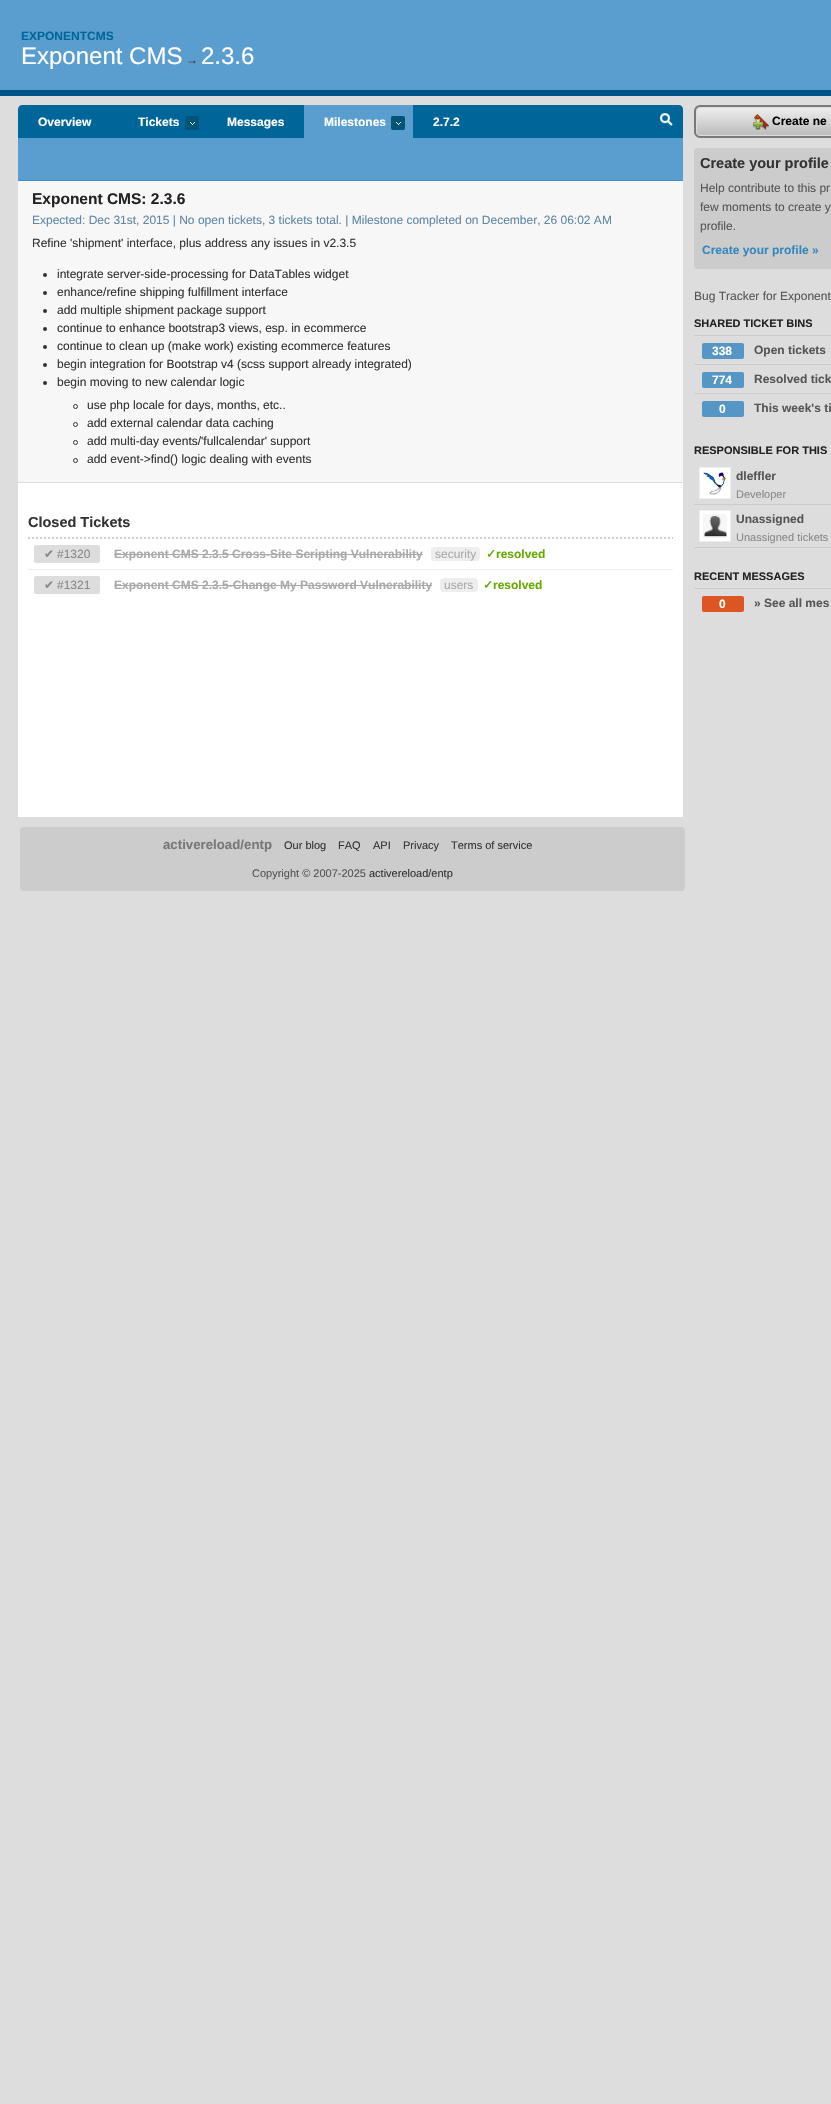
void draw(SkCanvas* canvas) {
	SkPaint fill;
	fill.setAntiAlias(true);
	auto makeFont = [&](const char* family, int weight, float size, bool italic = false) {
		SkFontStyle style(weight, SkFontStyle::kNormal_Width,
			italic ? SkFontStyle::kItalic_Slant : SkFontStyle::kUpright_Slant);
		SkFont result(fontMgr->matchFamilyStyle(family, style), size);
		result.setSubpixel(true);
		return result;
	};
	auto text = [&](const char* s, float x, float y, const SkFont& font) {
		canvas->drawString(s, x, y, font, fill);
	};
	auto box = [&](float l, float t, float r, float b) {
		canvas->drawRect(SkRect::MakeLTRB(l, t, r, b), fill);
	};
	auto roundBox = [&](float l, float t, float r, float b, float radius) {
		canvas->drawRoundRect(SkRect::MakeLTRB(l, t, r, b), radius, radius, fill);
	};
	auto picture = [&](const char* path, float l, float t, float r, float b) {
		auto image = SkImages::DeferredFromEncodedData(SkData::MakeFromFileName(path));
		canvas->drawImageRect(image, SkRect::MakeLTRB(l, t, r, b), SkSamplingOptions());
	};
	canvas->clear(0xFFDDDDDD);
	fill.setColor(0xFF5A9ECF);
	box(0, 0, 831, 90);
	fill.setColor(0xFF005588);
	box(0, 90, 831, 96);
	fill.setColor(0xFFFFFFFF);
	canvas->drawPath(SkPathBuilder().moveTo(22, 105).lineTo(679, 105).cubicTo(681, 105, 683, 107, 683, 109).lineTo(683, 817).lineTo(18, 817).lineTo(18, 109).cubicTo(18, 107, 20, 105, 22, 105).close().detach(), fill);
	fill.setColor(0xFF006699);
	canvas->drawPath(SkPathBuilder().moveTo(22, 105).lineTo(679, 105).cubicTo(681, 105, 683, 107, 683, 109).lineTo(683, 138).lineTo(18, 138).lineTo(18, 109).cubicTo(18, 107, 20, 105, 22, 105).close().detach(), fill);
	fill.setColor(0xFF005577);
	roundBox(185, 116, 199, 130, 2);
	picture("image0.png", 190, 122, 195, 125);
	fill.setColor(0xFF5A9ECF);
	box(304, 105, 413, 138);
	fill.setColor(0xFF005577);
	roundBox(391, 116, 405, 130, 2);
	picture("image0.png", 396, 122, 401, 125);
	picture("image1.png", 681, 105, 683, 107);
	picture("image2.png", 660, 113, 673, 126);
	fill.setColor(0xFF5A9ECF);
	box(18, 138, 683, 180);
	fill.setColor(0xFF468DC0);
	box(18, 180, 683, 181);
	fill.setColor(0xFFF7F7F7);
	box(18, 181, 683, 482);
	fill.setColor(0xFFDDDDDD);
	box(18, 482, 683, 483);
	fill.setColor(0xFF333333);
	canvas->drawCircle(45, 275, 2, fill);
	canvas->drawCircle(45, 293, 2, fill);
	canvas->drawCircle(45, 311, 2, fill);
	canvas->drawCircle(45, 329, 2, fill);
	canvas->drawCircle(45, 347, 2, fill);
	canvas->drawCircle(45, 365, 2, fill);
	canvas->drawCircle(45, 383, 2, fill);
	fill.setStyle(SkPaint::kStroke_Style);
	fill.setStrokeWidth(1);
	canvas->drawCircle(75.5f, 406.5f, 2, fill);
	canvas->drawCircle(75.5f, 424.5f, 2, fill);
	canvas->drawCircle(75.5f, 442.5f, 2, fill);
	canvas->drawCircle(75.5f, 460.5f, 2, fill);
	fill.setStrokeWidth(2);
	fill.setColor(0xFFCCCCCC);
	fill.setPathEffect(SkDashPathEffect::Make({{2, 2}}, 0));
	canvas->drawPath(SkPathBuilder().moveTo(28, 538).lineTo(673, 538).detach(), fill);
	fill.setPathEffect(nullptr);
	fill.setStyle(SkPaint::kFill_Style);
	fill.setColor(0xFFDDDDDD);
	roundBox(34, 545, 100, 563, 2);
	fill.setColor(0xFFAAAAAA);
	box(114, 554, 423, 555);
	fill.setColor(0xFFEEEEEE);
	roundBox(431, 547, 480, 561, 4);
	box(28, 569, 673, 570);
	fill.setColor(0xFFDDDDDD);
	roundBox(34, 576, 100, 594, 2);
	fill.setColor(0xFFAAAAAA);
	box(114, 585, 432, 586);
	fill.setColor(0xFFEEEEEE);
	roundBox(440, 578, 478, 592, 4);
	picture("image3.png", 694, 105, 831, 138);
	picture("image4.png", 753, 114, 769, 130);
	fill.setColor(0xFFCCCCCC);
	roundBox(694, 148, 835, 269, 4);
	box(694, 335, 831, 336);
	fill.setColor(0xFF5596C4);
	roundBox(702, 343, 744, 359, 2);
	fill.setColor(0xFFCCCCCC);
	box(694, 364, 831, 365);
	fill.setColor(0xFF5596C4);
	roundBox(702, 372, 744, 388, 2);
	fill.setColor(0xFFCCCCCC);
	box(694, 393, 831, 394);
	fill.setColor(0xFF5596C4);
	roundBox(702, 401, 744, 417, 2);
	fill.setColor(0xFFCCCCCC);
	box(694, 504, 831, 505);
	fill.setColor(0xFFFFFFFF);
	canvas->drawRect(SkRect::MakeLTRB(699.5f, 467.5f, 730.5f, 498.5f), fill);
	fill.setStyle(SkPaint::kStroke_Style);
	fill.setStrokeWidth(1);
	fill.setColor(0xFFEEEEEE);
	canvas->drawRect(SkRect::MakeLTRB(699.5f, 467.5f, 730.5f, 498.5f), fill);
	picture("image5.png", 703, 471, 727, 495);
	fill.setStyle(SkPaint::kFill_Style);
	fill.setColor(0xFFCCCCCC);
	box(694, 547, 831, 548);
	fill.setColor(0xFFFFFFFF);
	canvas->drawRect(SkRect::MakeLTRB(699.5f, 510.5f, 730.5f, 541.5f), fill);
	fill.setStyle(SkPaint::kStroke_Style);
	fill.setColor(0xFFEEEEEE);
	canvas->drawRect(SkRect::MakeLTRB(699.5f, 510.5f, 730.5f, 541.5f), fill);
	picture("image6.png", 703, 514, 727, 538);
	fill.setStyle(SkPaint::kFill_Style);
	fill.setColor(0xFFCCCCCC);
	box(694, 588, 831, 589);
	fill.setColor(0xFFDD5522);
	roundBox(702, 596, 744, 612, 2);
	fill.setColor(0xFFCCCCCC);
	roundBox(20, 827, 685, 891, 4);
	auto font1 = makeFont("Liberation Sans", 700, 12);
	fill.setColor(0xFF006699);
	text("EXPONENTCMS", 21, 40, font1);
	auto font2 = makeFont("Liberation Sans", 400, 24);
	fill.setColor(0xFFFFFFFF);
	text("Exponent CMS", 21, 64, font2);
	fill.setColor(0xFF333333);
	text("→", 186, 64, font1);
	fill.setColor(0xFFFFFFFF);
	text("2.3.6", 201, 64, font2);
	text("Overview", 38, 126, font1);
	text("Tickets", 138, 126, font1);
	text("Messages", 227, 126, font1);
	text("Milestones", 324, 126, font1);
	text("2.7.2", 433, 126, font1);
	auto font3 = makeFont("Liberation Sans", 700, 15.5f);
	fill.setColor(0xFF222222);
	text("Exponent CMS: 2.3.6", 32, 204, font3);
	auto font4 = makeFont("Liberation Sans", 400, 12);
	fill.setColor(0xFF5F87A5);
	text("Expected: Dec 31st, 2015 | No open tickets, 3 tickets total. | Milestone completed on December, 26 06:02 AM", 32, 224, font4);
	fill.setColor(0xFF333333);
	text("Refine 'shipment' interface, plus address any issues in v2.3.5", 32, 247, font4);
	text("integrate server-side-processing for DataTables widget", 57, 278, font4);
	text("enhance/refine shipping fulfillment interface", 57, 296, font4);
	text("add multiple shipment package support", 57, 314, font4);
	text("continue to enhance bootstrap3 views, esp. in ecommerce", 57, 332, font4);
	text("continue to clean up (make work) existing ecommerce features", 57, 350, font4);
	text("begin integration for Bootstrap v4 (scss support already integrated)", 57, 368, font4);
	text("begin moving to new calendar logic", 57, 386, font4);
	text("use php locale for days, months, etc..", 87, 409, font4);
	text("add external calendar data caching", 87, 427, font4);
	text("add multi-day events/'fullcalendar' support", 87, 445, font4);
	text("add event->find() logic dealing with events", 87, 463, font4);
	auto font5 = makeFont("Liberation Sans", 700, 14.5f);
	text("Closed Tickets", 28, 527, font5);
	auto font6 = makeFont("DejaVu Sans", 400, 12);
	fill.setColor(0xFF888888);
	text("✔", 44, 558, font6);
	text("#1320", 57, 558, font4);
	fill.setColor(0xFFAAAAAA);
	text("Exponent CMS 2.3.5 Cross-Site Scripting Vulnerability", 114, 558, font1);
	text("security", 435, 558, font4);
	auto font7 = makeFont("DejaVu Sans", 700, 12);
	fill.setColor(0xFF66AA00);
	text("✓", 486, 558, font7);
	text("resolved", 496, 558, font1);
	fill.setColor(0xFF888888);
	text("✔", 44, 589, font6);
	text("#1321", 57, 589, font4);
	fill.setColor(0xFFAAAAAA);
	text("Exponent CMS 2.3.5-Change My Password Vulnerability", 114, 589, font1);
	text("users", 444, 589, font4);
	fill.setColor(0xFF66AA00);
	text("✓", 483, 589, font7);
	text("resolved", 493, 589, font1);
	fill.setColor(0xFF000000);
	text("Create ne", 772, 125, font1);
	fill.setColor(0xFF333333);
	text("Create your profile", 700, 168, font5);
	fill.setColor(0xFF555555);
	text("Help contribute to this pr", 700, 192, font4);
	text("few moments to create y", 700, 211, font4);
	text("profile.", 700, 230, font4);
	fill.setColor(0xFF3388BB);
	text("Create your profile »", 702, 254, font1);
	fill.setColor(0xFF555555);
	text("Bug Tracker for Exponent", 694, 300, font4);
	auto font8 = makeFont("Liberation Sans", 700, 11);
	fill.setColor(0xFF222222);
	text("SHARED TICKET BINS", 694, 327, font8);
	fill.setColor(0xFFFFFFFF);
	text("338", 712, 355, font1);
	fill.setColor(0xFF555555);
	text("Open tickets", 754, 354, font1);
	fill.setColor(0xFFFFFFFF);
	text("774", 712, 384, font1);
	fill.setColor(0xFF555555);
	text("Resolved tick", 754, 383, font1);
	fill.setColor(0xFFFFFFFF);
	text("0", 719, 413, font1);
	fill.setColor(0xFF555555);
	text("This week's ti", 754, 412, font1);
	fill.setColor(0xFF222222);
	text("RESPONSIBLE FOR THIS", 694, 454, font8);
	fill.setColor(0xFF555555);
	text("dleffler", 736, 480, font1);
	auto font9 = makeFont("Liberation Sans", 400, 11);
	fill.setColor(0xFF888888);
	text("Developer", 736, 498, font9);
	fill.setColor(0xFF555555);
	text("Unassigned", 736, 523, font1);
	fill.setColor(0xFF888888);
	text("Unassigned tickets", 736, 541, font9);
	fill.setColor(0xFF222222);
	text("RECENT MESSAGES", 694, 580, font8);
	fill.setColor(0xFFFFFFFF);
	text("0", 719, 608, font1);
	fill.setColor(0xFF555555);
	text("» See all mes", 754, 607, font1);
	auto font10 = makeFont("Liberation Sans", 700, 13.25f);
	fill.setColor(0xFF777777);
	text("activereload/entp", 163, 849, font10);
	fill.setColor(0xFF333333);
	text("Our blog", 284, 849, font9);
	text("FAQ", 338, 849, font9);
	text("API", 373, 849, font9);
	text("Privacy", 403, 849, font9);
	text("Terms of service", 451, 849, font9);
	fill.setColor(0xFF555555);
	text("Copyright © 2007-2025", 252, 877, font9);
	fill.setColor(0xFF333333);
	text("activereload/entp", 369, 877, font9);
}
